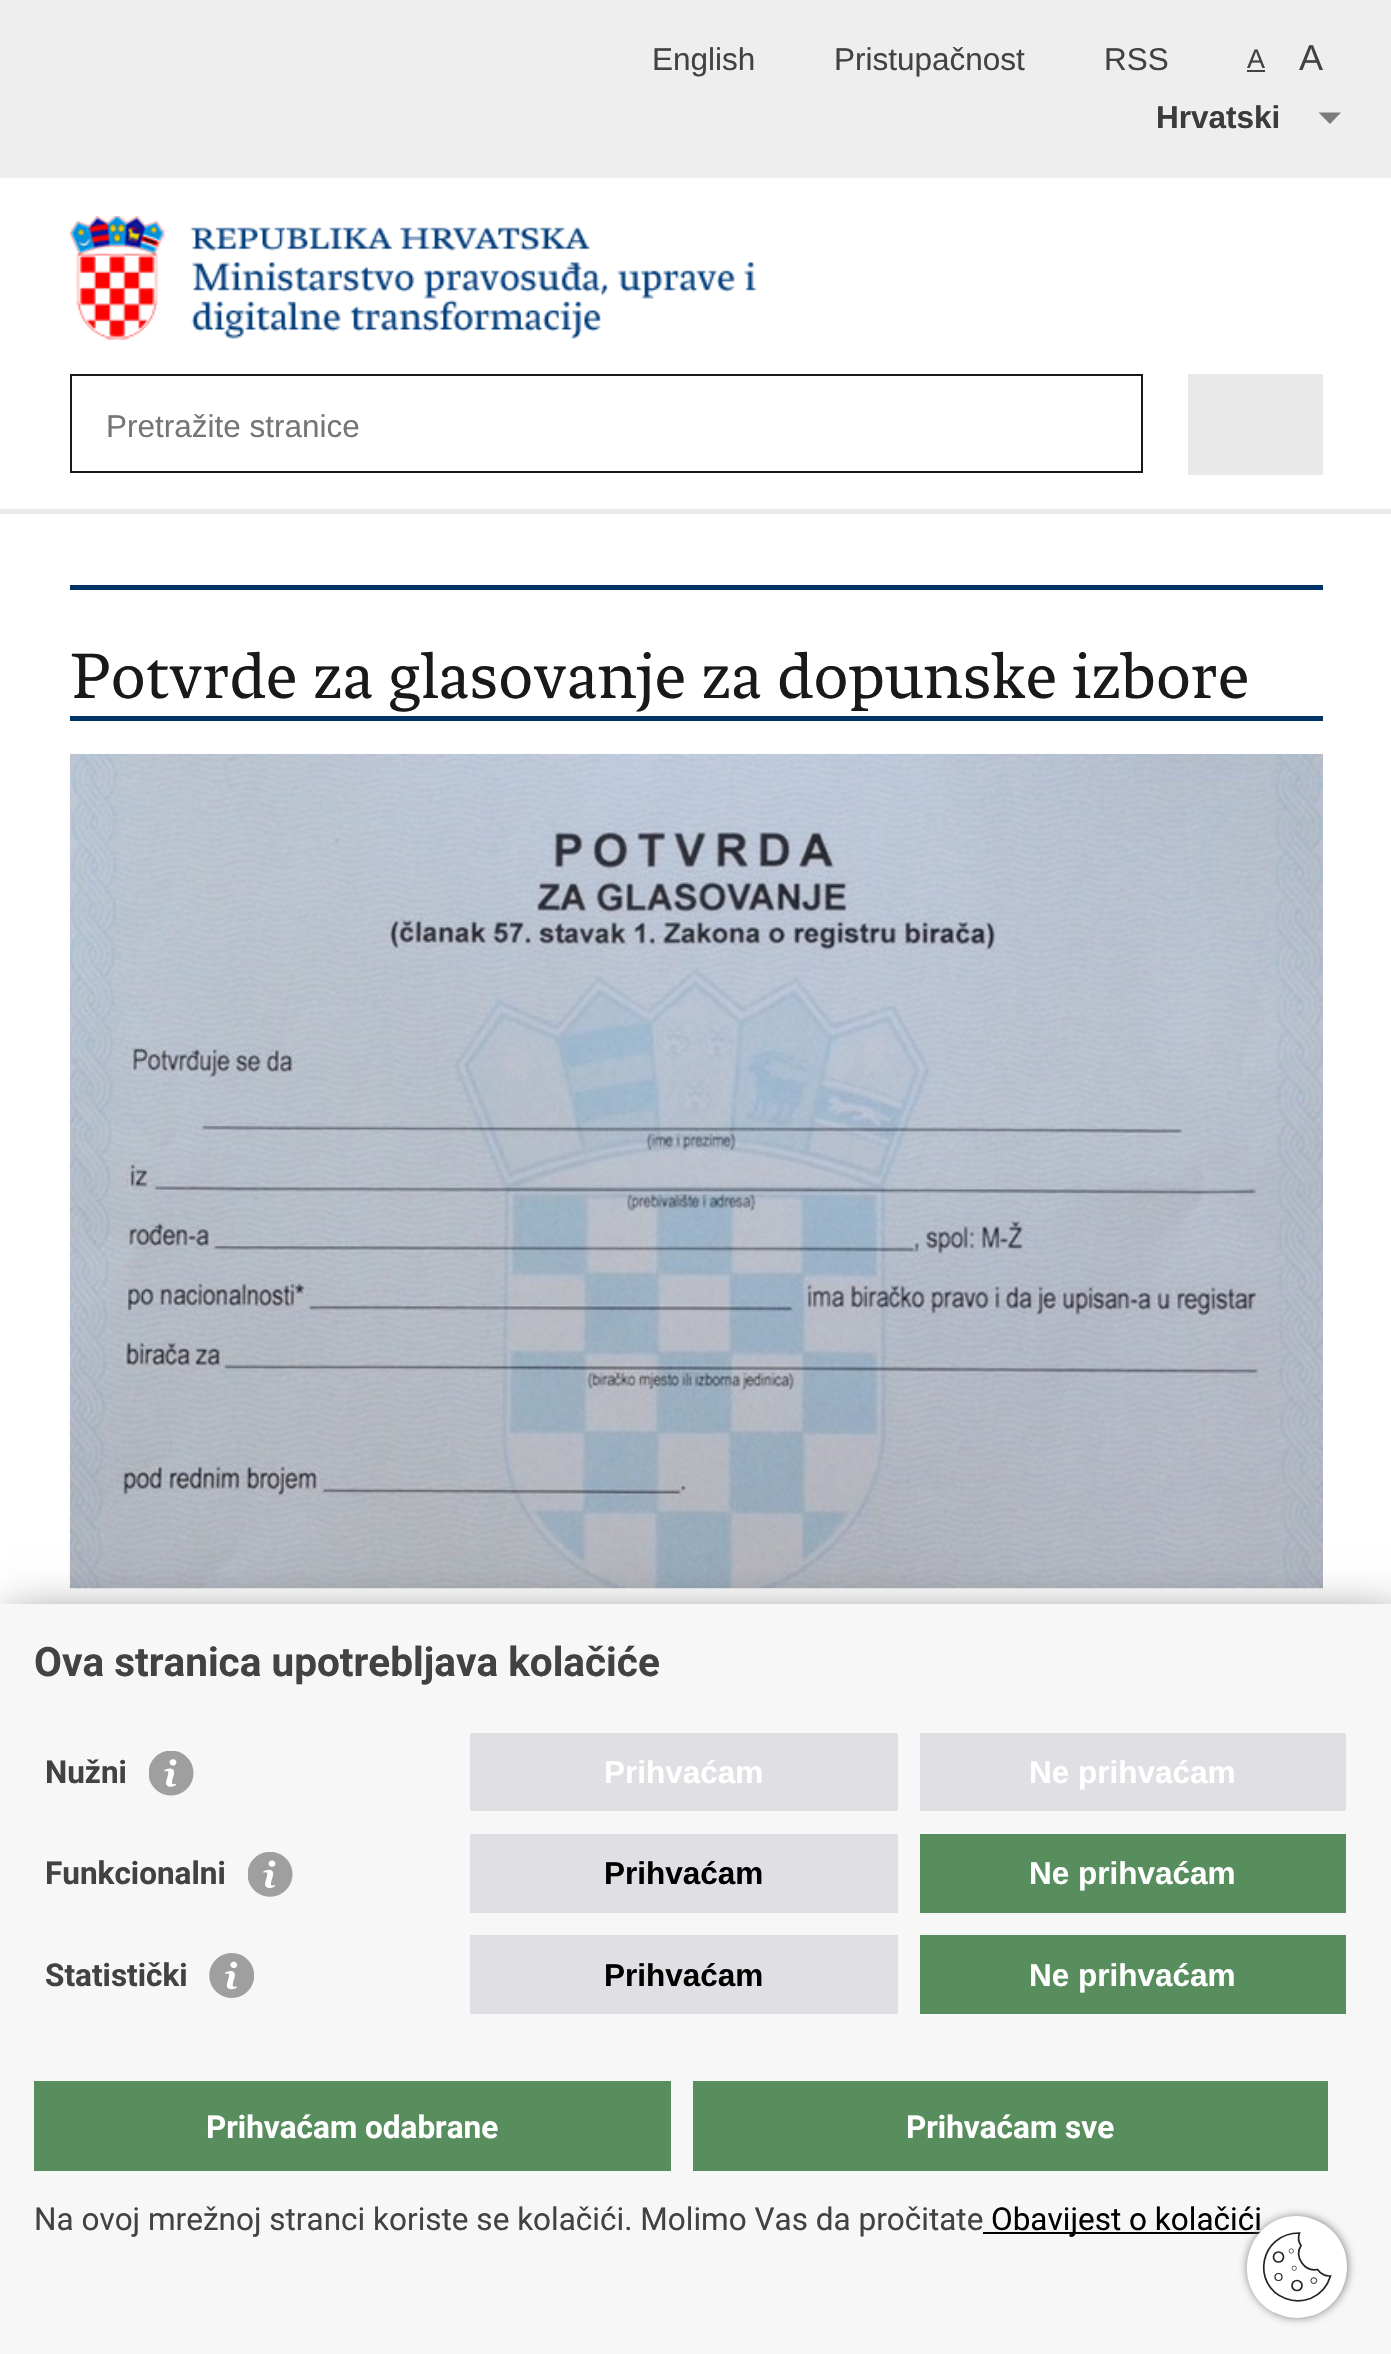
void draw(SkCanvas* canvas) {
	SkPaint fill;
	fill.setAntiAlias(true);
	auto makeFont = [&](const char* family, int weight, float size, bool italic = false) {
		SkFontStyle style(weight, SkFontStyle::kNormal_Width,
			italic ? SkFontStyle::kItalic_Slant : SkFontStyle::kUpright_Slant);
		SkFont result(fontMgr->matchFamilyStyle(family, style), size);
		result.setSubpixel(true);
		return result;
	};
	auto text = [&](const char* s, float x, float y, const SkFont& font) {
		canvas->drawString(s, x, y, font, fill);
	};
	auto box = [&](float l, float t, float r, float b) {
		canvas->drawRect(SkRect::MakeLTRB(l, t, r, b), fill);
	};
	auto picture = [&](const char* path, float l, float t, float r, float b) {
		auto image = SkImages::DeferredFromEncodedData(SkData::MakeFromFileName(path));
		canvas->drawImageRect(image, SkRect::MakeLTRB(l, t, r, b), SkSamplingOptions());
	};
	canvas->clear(0xFFFFFFFF);
	fill.setColor(0xFFE9E9E9);
	box(0, 509, 1391, 514);
	fill.setColor(0xFFEEEEEE);
	box(0, 0, 1391, 178);
	fill.setColor(0xFF424242);
	box(1247, 70, 1265, 72);
	fill.setColor(0xFF7B7B7B);
	canvas->drawPath(SkPathBuilder().moveTo(1318.5f, 112.5f).lineTo(1330, 124).lineTo(1341, 112.5f).close().detach(), fill);
	picture("image0.png", 69, 216, 757, 340);
	fill.setStyle(SkPaint::kStroke_Style);
	fill.setStrokeWidth(2);
	fill.setColor(0xFF191919);
	canvas->drawRect(SkRect::MakeLTRB(71, 375, 1142, 472), fill);
	fill.setStyle(SkPaint::kFill_Style);
	fill.setColor(0xFFE9E9E9);
	box(1188, 374, 1323, 475);
	fill.setColor(0xFF003366);
	box(70, 585, 1323, 590);
	box(70, 716, 1323, 721);
	picture("image1.png", 69, 753, 1323, 1589);
	fill.setColor(0x80000000);
	fill.setMaskFilter(SkMaskFilter::MakeBlur(kNormal_SkBlurStyle, 22.5f));
	canvas->drawRect(SkRect::MakeLTRB(7, 1616, 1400, 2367), fill);
	fill.setMaskFilter(nullptr);
	fill.setColor(0xFFF7F7F7);
	box(0, 1604, 1391, 2354);
	picture("image2.png", 149, 1751, 194, 1796);
	fill.setColor(0xFFE0E0E4);
	box(470, 1733, 898, 1811);
	box(920, 1733, 1346, 1811);
	picture("image3.png", 248, 1852, 293, 1897);
	box(470, 1834, 898, 1913);
	fill.setColor(0xFF588E5E);
	box(920, 1834, 1346, 1913);
	picture("image4.png", 209, 1953, 254, 1998);
	fill.setColor(0xFFE0E0E4);
	box(470, 1935, 898, 2014);
	fill.setColor(0xFF588E5E);
	box(920, 1935, 1346, 2014);
	box(34, 2081, 671, 2171);
	box(693, 2081, 1328, 2171);
	fill.setColor(0xFF000000);
	box(983, 2232, 1261, 2234);
	fill.setColor(0xFF858585);
	fill.setMaskFilter(SkMaskFilter::MakeBlur(kNormal_SkBlurStyle, 4.5f));
	canvas->drawRoundRect(SkRect::MakeLTRB(1247, 2216, 1348, 2318), 50.5f, 50.5f, fill);
	fill.setMaskFilter(nullptr);
	auto font1 = makeFont("Liberation Sans", 400, 31.5f);
	fill.setColor(0xFF424242);
	text("English", 652, 70, font1);
	text("Pristupačnost", 834, 70, font1);
	text("RSS", 1104, 70, font1);
	auto font2 = makeFont("Liberation Sans", 400, 27);
	text("A", 1247, 68, font2);
	auto font3 = makeFont("Liberation Sans", 400, 36);
	text("A", 1299, 70, font3);
	auto font4 = makeFont("Liberation Sans", 700, 31.5f);
	fill.setColor(0xFF3B3B3B);
	text("Hrvatski", 1156, 128, font4);
	fill.setColor(0xFF757575);
	text("Pretražite stranice", 106, 437, font1);
	auto font5 = makeFont("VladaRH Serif", 400, 67.5f);
	fill.setColor(0xFF191919);
	text("Potvrde za glasovanje za dopunske izbore", 70, 698, font5);
	auto font6 = makeFont("Roboto", 700, 40.5f);
	fill.setColor(0xFF424242);
	text("Ova stranica upotrebljava kolačiće", 34, 1676, font6);
	auto font7 = makeFont("Roboto", 700, 31.5f);
	text("Nužni", 45, 1783, font7);
	fill.setColor(0xFFFFFFFF);
	text("Prihvaćam", 604, 1783, font4);
	text("Ne prihvaćam", 1029, 1783, font4);
	fill.setColor(0xFF424242);
	text("Funkcionalni", 45, 1884, font7);
	fill.setColor(0xFF000000);
	text("Prihvaćam", 604, 1884, font4);
	fill.setColor(0xFFFFFFFF);
	text("Ne prihvaćam", 1029, 1884, font4);
	fill.setColor(0xFF424242);
	text("Statistički", 45, 1986, font7);
	fill.setColor(0xFF000000);
	text("Prihvaćam", 604, 1986, font4);
	fill.setColor(0xFFFFFFFF);
	text("Ne prihvaćam", 1029, 1986, font4);
	text("Prihvaćam odabrane", 206, 2138, font7);
	text("Prihvaćam sve", 906, 2138, font7);
	auto font8 = makeFont("Roboto", 400, 31.5f);
	fill.setColor(0xFF424242);
	text("Na ovoj mrežnoj stranci koriste se kolačići. Molimo Vas da pročitate", 34, 2230, font8);
	fill.setColor(0xFF000000);
	text("Obavijest o kolačići", 991, 2230, font8);
	fill.setColor(0xFFFFFFFF);
	canvas->drawPath(SkPathBuilder().moveTo(1297, 2216).cubicTo(1307, 2216, 1317, 2220, 1325, 2225).cubicTo(1358, 2247, 1353, 2298, 1317, 2314).cubicTo(1309, 2317, 1305, 2317, 1297, 2318).cubicTo(1289, 2318, 1280, 2315, 1273, 2312).cubicTo(1228, 2287, 1245, 2216, 1297, 2216).close().detach(), fill);
	fill.setStyle(SkPaint::kStroke_Style);
	fill.setStrokeWidth(1.7f);
	fill.setColor(0xFF222323);
	canvas->drawPath(SkPathBuilder().moveTo(1329.5f, 2276).cubicTo(1325, 2276, 1320.5f, 2273.5f, 1317.5f, 2269.5f).cubicTo(1304.5f, 2272, 1294, 2257, 1301, 2245.5f).cubicTo(1298.5f, 2242, 1298, 2237, 1299.5f, 2233).cubicTo(1259.5f, 2233, 1250.5f, 2285, 1285.5f, 2298.5f).cubicTo(1293.5f, 2301.5f, 1302.5f, 2301.5f, 1310.5f, 2298.5f).cubicTo(1320, 2294.5f, 1327.5f, 2286, 1330.5f, 2276).close().detach(), fill);
	canvas->drawCircle(1278.5f, 2257, 5, fill);
	canvas->drawCircle(1297, 2285.5f, 5, fill);
	fill.setStrokeWidth(1.2f);
	canvas->drawCircle(1278.5f, 2277, 3.5f, fill);
	fill.setStrokeWidth(1);
	canvas->drawCircle(1313.8f, 2280.6f, 2.9f, fill);
	fill.setStrokeWidth(0.7f);
	canvas->drawCircle(1294.2f, 2268.3f, 2.2f, fill);
	canvas->drawCircle(1291.3f, 2251, 2.2f, fill);
}
